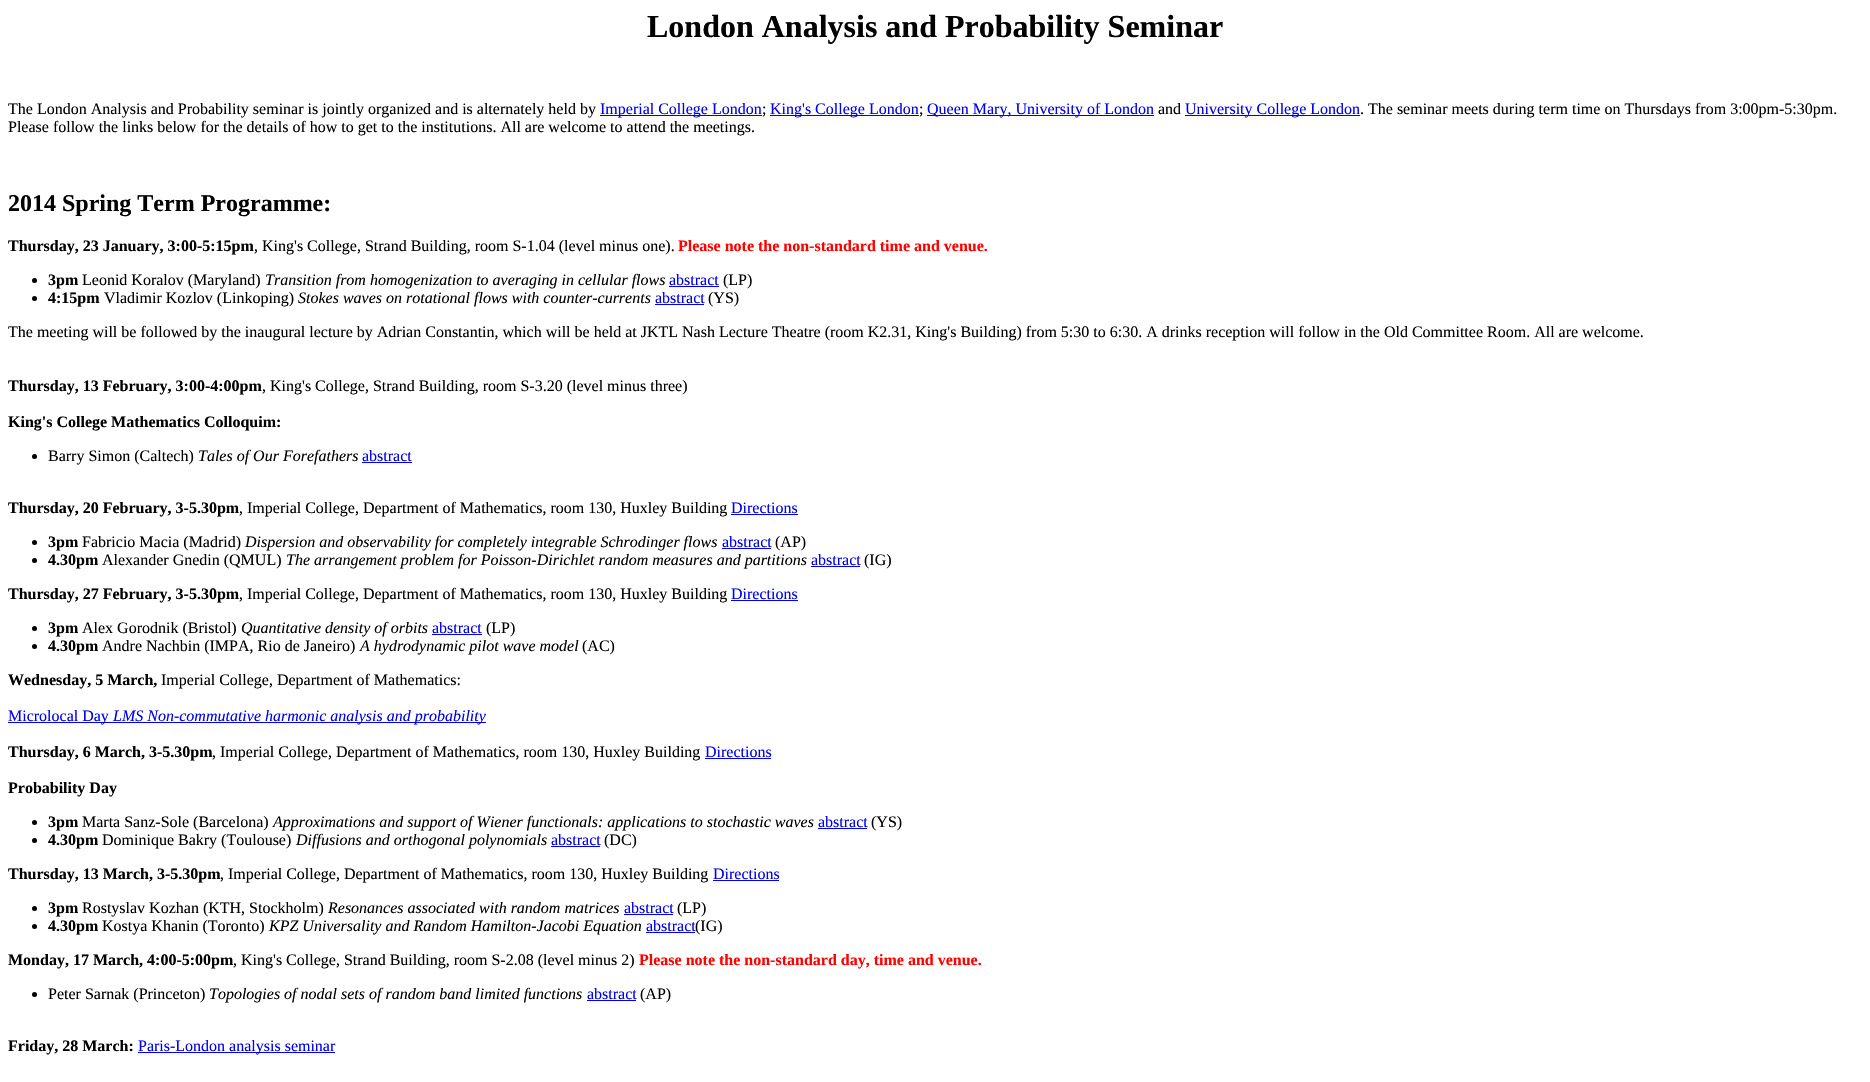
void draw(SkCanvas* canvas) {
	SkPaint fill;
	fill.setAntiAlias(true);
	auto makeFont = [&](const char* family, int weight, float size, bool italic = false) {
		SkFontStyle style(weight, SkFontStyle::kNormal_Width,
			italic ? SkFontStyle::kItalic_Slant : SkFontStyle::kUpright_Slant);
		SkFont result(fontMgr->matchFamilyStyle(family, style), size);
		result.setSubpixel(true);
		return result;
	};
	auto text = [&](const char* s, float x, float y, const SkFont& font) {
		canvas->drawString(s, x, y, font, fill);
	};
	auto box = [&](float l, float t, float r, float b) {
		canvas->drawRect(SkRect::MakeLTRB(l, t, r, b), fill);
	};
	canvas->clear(0xFFFFFFFF);
	fill.setColor(0xFF0000EE);
	box(600, 115, 762, 116);
	box(770, 115, 919, 116);
	box(927, 115, 1154, 116);
	box(1185, 115, 1360, 116);
	fill.setColor(0xFF000000);
	canvas->drawCircle(34.5f, 280.5f, 2.5f, fill);
	fill.setColor(0xFF0000EE);
	box(669, 286, 719, 287);
	fill.setColor(0xFF000000);
	canvas->drawCircle(34.5f, 298.5f, 2.5f, fill);
	fill.setColor(0xFF0000EE);
	box(655, 304, 704, 305);
	fill.setColor(0xFF000000);
	canvas->drawCircle(34.5f, 456.5f, 2.5f, fill);
	fill.setColor(0xFF0000EE);
	box(362, 462, 412, 463);
	box(731, 514, 798, 515);
	fill.setColor(0xFF000000);
	canvas->drawCircle(34.5f, 542.5f, 2.5f, fill);
	fill.setColor(0xFF0000EE);
	box(722, 548, 771, 549);
	fill.setColor(0xFF000000);
	canvas->drawCircle(34.5f, 560.5f, 2.5f, fill);
	fill.setColor(0xFF0000EE);
	box(811, 566, 860, 567);
	box(731, 600, 798, 601);
	fill.setColor(0xFF000000);
	canvas->drawCircle(34.5f, 628.5f, 2.5f, fill);
	fill.setColor(0xFF0000EE);
	box(432, 634, 482, 635);
	fill.setColor(0xFF000000);
	canvas->drawCircle(34.5f, 646.5f, 2.5f, fill);
	fill.setColor(0xFF0000EE);
	box(8, 722, 486, 723);
	box(705, 758, 771, 759);
	fill.setColor(0xFF000000);
	canvas->drawCircle(34.5f, 822.5f, 2.5f, fill);
	fill.setColor(0xFF0000EE);
	box(818, 828, 867, 829);
	fill.setColor(0xFF000000);
	canvas->drawCircle(34.5f, 840.5f, 2.5f, fill);
	fill.setColor(0xFF0000EE);
	box(551, 846, 600, 847);
	box(713, 880, 779, 881);
	fill.setColor(0xFF000000);
	canvas->drawCircle(34.5f, 908.5f, 2.5f, fill);
	fill.setColor(0xFF0000EE);
	box(624, 914, 673, 915);
	fill.setColor(0xFF000000);
	canvas->drawCircle(34.5f, 926.5f, 2.5f, fill);
	fill.setColor(0xFF0000EE);
	box(646, 932, 695, 933);
	fill.setColor(0xFF000000);
	canvas->drawCircle(34.5f, 994.5f, 2.5f, fill);
	fill.setColor(0xFF0000EE);
	box(587, 1000, 636, 1001);
	box(138, 1052, 335, 1053);
	auto font1 = makeFont("Liberation Serif", 700, 32);
	fill.setColor(0xFF000000);
	text("London Analysis and Probability Seminar", 647, 37, font1);
	auto font2 = makeFont("Liberation Serif", 400, 16);
	text("The London Analysis and Probability seminar is jointly organized and is alternately held by", 8, 114, font2);
	fill.setColor(0xFF0000EE);
	text("Imperial College London", 600, 114, font2);
	fill.setColor(0xFF000000);
	text(";", 762, 114, font2);
	fill.setColor(0xFF0000EE);
	text("King's College London", 770, 114, font2);
	fill.setColor(0xFF000000);
	text(";", 919, 114, font2);
	fill.setColor(0xFF0000EE);
	text("Queen Mary, University of London", 927, 114, font2);
	fill.setColor(0xFF000000);
	text("and", 1158, 114, font2);
	fill.setColor(0xFF0000EE);
	text("University College London", 1185, 114, font2);
	fill.setColor(0xFF000000);
	text(". The seminar meets during term time on Thursdays from 3:00pm-5:30pm.", 1360, 114, font2);
	text("Please follow the links below for the details of how to get to the institutions. All are welcome to attend the meetings.", 8, 132, font2);
	auto font3 = makeFont("Liberation Serif", 700, 24);
	text("2014 Spring Term Programme:", 8, 211, font3);
	auto font4 = makeFont("Liberation Serif", 700, 16);
	text("Thursday, 23 January, 3:00-5:15pm", 8, 251, font4);
	text(", King's College, Strand Building, room S-1.04 (level minus one).", 254, 251, font2);
	fill.setColor(0xFFFF0000);
	text("Please note the non-standard time and venue.", 678, 251, font4);
	fill.setColor(0xFF000000);
	text("3pm", 48, 285, font4);
	text("Leonid Koralov (Maryland)", 82, 285, font2);
	auto font5 = makeFont("Liberation Serif", 400, 16, true);
	text("Transition from homogenization to averaging in cellular flows", 265, 285, font5);
	fill.setColor(0xFF0000EE);
	text("abstract", 669, 285, font2);
	fill.setColor(0xFF000000);
	text("(LP)", 723, 285, font2);
	text("4:15pm", 48, 303, font4);
	text("Vladimir Kozlov (Linkoping)", 104, 303, font2);
	text("Stokes waves on rotational flows with counter-currents", 298, 303, font5);
	fill.setColor(0xFF0000EE);
	text("abstract", 655, 303, font2);
	fill.setColor(0xFF000000);
	text("(YS)", 708, 303, font2);
	text("The meeting will be followed by the inaugural lecture by Adrian Constantin, which will be held at JKTL Nash Lecture Theatre (room K2.31, King's Building) from 5:30 to 6:30. A drinks reception will follow in the Old Committee Room. All are welcome.", 8, 337, font2);
	text("Thursday, 13 February, 3:00-4:00pm", 8, 391, font4);
	text(", King's College, Strand Building, room S-3.20 (level minus three)", 262, 391, font2);
	text("King's College Mathematics Colloquim:", 8, 427, font4);
	text("Barry Simon (Caltech)", 48, 461, font2);
	text("Tales of Our Forefathers", 198, 461, font5);
	fill.setColor(0xFF0000EE);
	text("abstract", 362, 461, font2);
	fill.setColor(0xFF000000);
	text("Thursday, 20 February, 3-5.30pm", 8, 513, font4);
	text(", Imperial College, Department of Mathematics, room 130, Huxley Building", 239, 513, font2);
	fill.setColor(0xFF0000EE);
	text("Directions", 731, 513, font2);
	fill.setColor(0xFF000000);
	text("3pm", 48, 547, font4);
	text("Fabricio Macia (Madrid)", 82, 547, font2);
	text("Dispersion and observability for completely integrable Schrodinger flows", 245, 547, font5);
	fill.setColor(0xFF0000EE);
	text("abstract", 722, 547, font2);
	fill.setColor(0xFF000000);
	text("(AP)", 775, 547, font2);
	text("4.30pm", 48, 565, font4);
	text("Alexander Gnedin (QMUL)", 102, 565, font2);
	text("The arrangement problem for Poisson-Dirichlet random measures and partitions", 286, 565, font5);
	fill.setColor(0xFF0000EE);
	text("abstract", 811, 565, font2);
	fill.setColor(0xFF000000);
	text("(IG)", 864, 565, font2);
	text("Thursday, 27 February, 3-5.30pm", 8, 599, font4);
	text(", Imperial College, Department of Mathematics, room 130, Huxley Building", 239, 599, font2);
	fill.setColor(0xFF0000EE);
	text("Directions", 731, 599, font2);
	fill.setColor(0xFF000000);
	text("3pm", 48, 633, font4);
	text("Alex Gorodnik (Bristol)", 82, 633, font2);
	text("Quantitative density of orbits", 241, 633, font5);
	fill.setColor(0xFF0000EE);
	text("abstract", 432, 633, font2);
	fill.setColor(0xFF000000);
	text("(LP)", 486, 633, font2);
	text("4.30pm", 48, 651, font4);
	text("Andre Nachbin (IMPA, Rio de Janeiro)", 102, 651, font2);
	text("A hydrodynamic pilot wave model", 360, 651, font5);
	text("(AC)", 582, 651, font2);
	text("Wednesday, 5 March,", 8, 685, font4);
	text("Imperial College, Department of Mathematics:", 161, 685, font2);
	fill.setColor(0xFF0000EE);
	text("Microlocal Day", 8, 721, font2);
	text("LMS Non-commutative harmonic analysis and probability", 113, 721, font5);
	fill.setColor(0xFF000000);
	text("Thursday, 6 March, 3-5.30pm", 8, 757, font4);
	text(", Imperial College, Department of Mathematics, room 130, Huxley Building", 212, 757, font2);
	fill.setColor(0xFF0000EE);
	text("Directions", 705, 757, font2);
	fill.setColor(0xFF000000);
	text("Probability Day", 8, 793, font4);
	text("3pm", 48, 827, font4);
	text("Marta Sanz-Sole (Barcelona)", 82, 827, font2);
	text("Approximations and support of Wiener functionals: applications to stochastic waves", 273, 827, font5);
	fill.setColor(0xFF0000EE);
	text("abstract", 818, 827, font2);
	fill.setColor(0xFF000000);
	text("(YS)", 871, 827, font2);
	text("4.30pm", 48, 845, font4);
	text("Dominique Bakry (Toulouse)", 102, 845, font2);
	text("Diffusions and orthogonal polynomials", 296, 845, font5);
	fill.setColor(0xFF0000EE);
	text("abstract", 551, 845, font2);
	fill.setColor(0xFF000000);
	text("(DC)", 604, 845, font2);
	text("Thursday, 13 March, 3-5.30pm", 8, 879, font4);
	text(", Imperial College, Department of Mathematics, room 130, Huxley Building", 220, 879, font2);
	fill.setColor(0xFF0000EE);
	text("Directions", 713, 879, font2);
	fill.setColor(0xFF000000);
	text("3pm", 48, 913, font4);
	text("Rostyslav Kozhan (KTH, Stockholm)", 82, 913, font2);
	text("Resonances associated with random matrices", 328, 913, font5);
	fill.setColor(0xFF0000EE);
	text("abstract", 624, 913, font2);
	fill.setColor(0xFF000000);
	text("(LP)", 677, 913, font2);
	text("4.30pm", 48, 931, font4);
	text("Kostya Khanin (Toronto)", 102, 931, font2);
	text("KPZ Universality and Random Hamilton-Jacobi Equation", 269, 931, font5);
	fill.setColor(0xFF0000EE);
	text("abstract", 646, 931, font2);
	fill.setColor(0xFF000000);
	text("(IG)", 695, 931, font2);
	text("Monday, 17 March, 4:00-5:00pm", 8, 965, font4);
	text(", King's College, Strand Building, room S-2.08 (level minus 2)", 233, 965, font2);
	fill.setColor(0xFFFF0000);
	text("Please note the non-standard day, time and venue.", 639, 965, font4);
	fill.setColor(0xFF000000);
	text("Peter Sarnak (Princeton)", 48, 999, font2);
	text("Topologies of nodal sets of random band limited functions", 209, 999, font5);
	fill.setColor(0xFF0000EE);
	text("abstract", 587, 999, font2);
	fill.setColor(0xFF000000);
	text("(AP)", 640, 999, font2);
	text("Friday, 28 March:", 8, 1051, font4);
	fill.setColor(0xFF0000EE);
	text("Paris-London analysis seminar", 138, 1051, font2);
}
